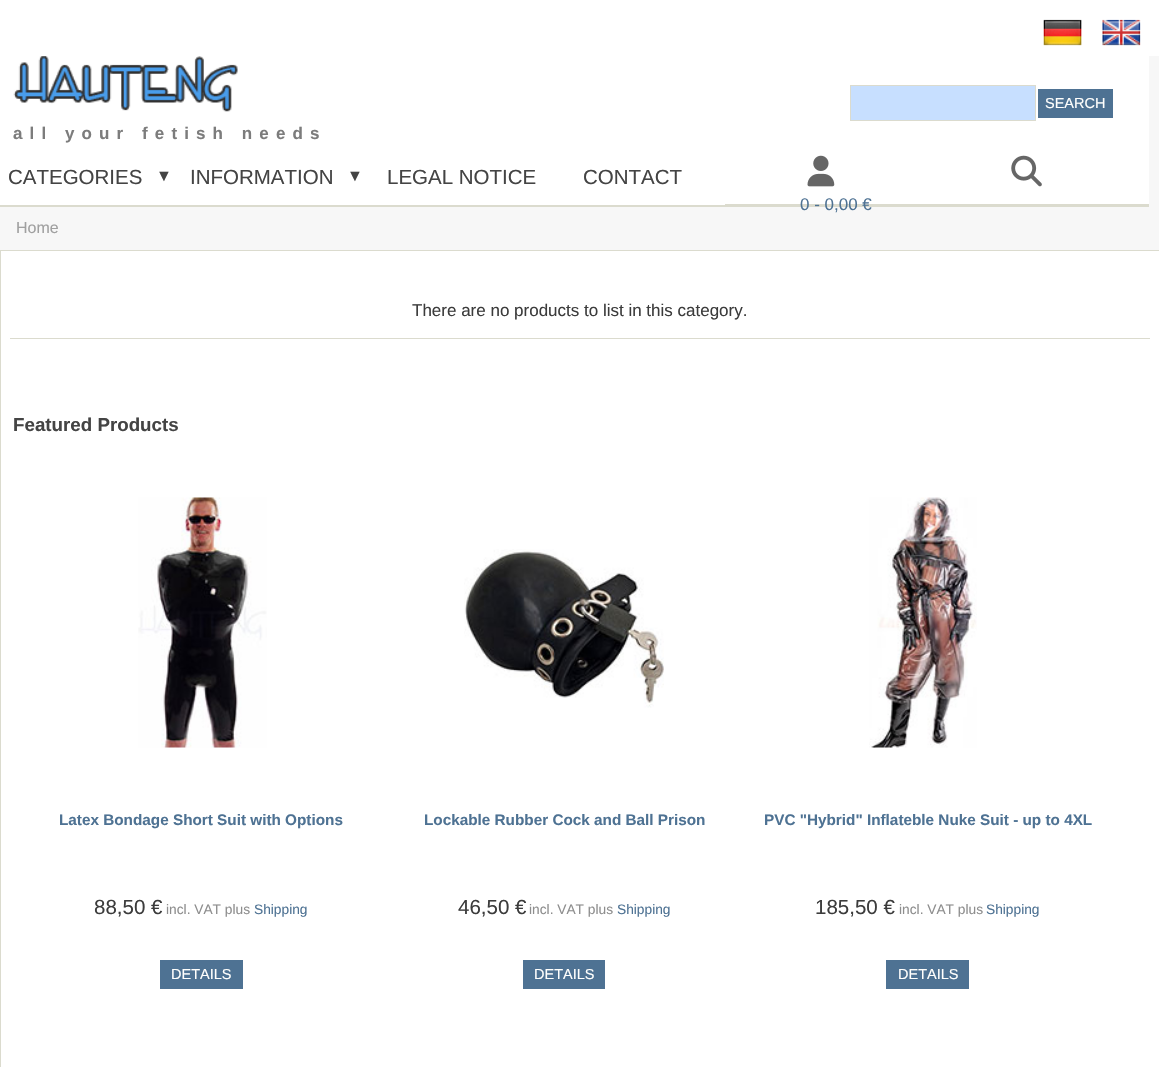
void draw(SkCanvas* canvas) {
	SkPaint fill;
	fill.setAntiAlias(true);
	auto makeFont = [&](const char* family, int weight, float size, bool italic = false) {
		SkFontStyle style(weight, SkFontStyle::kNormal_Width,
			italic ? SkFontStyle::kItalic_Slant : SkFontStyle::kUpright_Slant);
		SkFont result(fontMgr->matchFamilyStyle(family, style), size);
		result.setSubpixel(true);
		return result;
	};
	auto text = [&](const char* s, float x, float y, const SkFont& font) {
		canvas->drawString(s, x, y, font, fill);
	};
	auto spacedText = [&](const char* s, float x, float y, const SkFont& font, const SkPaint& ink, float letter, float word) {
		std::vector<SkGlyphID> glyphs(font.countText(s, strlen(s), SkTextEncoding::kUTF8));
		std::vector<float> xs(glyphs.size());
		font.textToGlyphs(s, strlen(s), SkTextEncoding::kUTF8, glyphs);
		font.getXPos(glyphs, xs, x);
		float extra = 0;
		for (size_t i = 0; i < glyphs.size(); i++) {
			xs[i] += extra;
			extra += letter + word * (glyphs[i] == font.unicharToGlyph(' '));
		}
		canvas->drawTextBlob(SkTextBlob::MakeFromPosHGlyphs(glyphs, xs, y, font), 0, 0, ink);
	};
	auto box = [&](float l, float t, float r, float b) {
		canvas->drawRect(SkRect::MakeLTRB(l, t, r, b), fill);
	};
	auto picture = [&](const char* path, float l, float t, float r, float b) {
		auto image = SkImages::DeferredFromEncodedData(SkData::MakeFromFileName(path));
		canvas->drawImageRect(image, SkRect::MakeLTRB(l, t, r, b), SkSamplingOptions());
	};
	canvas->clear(0xFFF7F7F7);
	fill.setColor(0xFFFFFFFF);
	box(0, 0, 1159, 56);
	picture("image0.png", 1043, 19, 1082, 46);
	picture("image1.png", 1102, 19, 1141, 46);
	box(0, 56, 1149, 204);
	fill.setColor(0xFFDBDBCE);
	box(0, 204, 1149, 207);
	picture("image2.png", 13, 56, 238, 112);
	fill.setColor(0xFFC7DFFF);
	canvas->drawRect(SkRect::MakeLTRB(850.5f, 85.5f, 1035.5f, 120.5f), fill);
	fill.setStyle(SkPaint::kStroke_Style);
	fill.setStrokeWidth(1);
	fill.setColor(0xFFDBDBCE);
	canvas->drawRect(SkRect::MakeLTRB(850.5f, 85.5f, 1035.5f, 120.5f), fill);
	fill.setStyle(SkPaint::kFill_Style);
	fill.setColor(0xFF4E7293);
	box(1038, 89, 1113, 118);
	fill.setColor(0xFFFFFFFF);
	box(0, 204, 725, 205);
	picture("image3.png", 807, 155, 835, 187);
	picture("image4.png", 1011, 155, 1042, 187);
	canvas->drawRect(SkRect::MakeLTRB(0.5f, 250.5f, 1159.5f, 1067.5f), fill);
	fill.setStyle(SkPaint::kStroke_Style);
	fill.setColor(0xFFDBDBCE);
	canvas->drawRect(SkRect::MakeLTRB(0.5f, 250.5f, 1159.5f, 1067.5f), fill);
	fill.setStyle(SkPaint::kFill_Style);
	box(10, 338, 1150, 339);
	picture("image5.png", 138, 497, 267, 748);
	fill.setColor(0xFF4E7293);
	box(160, 960, 243, 989);
	picture("image6.png", 464, 549, 664, 708);
	box(523, 960, 605, 989);
	picture("image7.png", 869, 497, 977, 748);
	box(886, 960, 969, 989);
	auto font1 = makeFont("Liberation Sans", 400, 14.5f);
	fill.setColor(0xFFFFFFFD);
	text("SEARCH", 1045, 108, font1);
	auto font2 = makeFont("Liberation Sans", 700, 17);
	fill.setColor(0xFF7C7C7C);
	spacedText("all your fetish needs", 13, 139, font2, fill, 7.1f, 0);
	auto font3 = makeFont("Liberation Sans", 400, 20.5f);
	fill.setColor(0xFF444444);
	text("CATEGORIES", 8, 184, font3);
	auto font4 = makeFont("Liberation Sans", 400, 16, true);
	text("▼", 156, 181, font4);
	text("INFORMATION", 190, 184, font3);
	text("▼", 347, 181, font4);
	text("LEGAL NOTICE", 387, 184, font3);
	text("CONTACT", 583, 184, font3);
	auto font5 = makeFont("Liberation Sans", 400, 17);
	fill.setColor(0xFF4E7293);
	text("0 - 0,00 €", 800, 210, font5);
	auto font6 = makeFont("Liberation Sans", 400, 16);
	fill.setColor(0xFFA0A0A0);
	text("Home", 16, 233, font6);
	fill.setColor(0xFF3C3C3C);
	text("There are no products to list in this category.", 412, 316, font5);
	auto font7 = makeFont("Liberation Sans", 700, 18.75f);
	fill.setColor(0xFF444444);
	text("Featured Products", 13, 431, font7);
	auto font8 = makeFont("Liberation Sans", 700, 15.3f);
	fill.setColor(0xFF4E7293);
	text("Latex Bondage Short Suit with Options", 59, 825, font8);
	fill.setColor(0xFF3C3C3C);
	text("88,50 €", 94, 914, font3);
	auto font9 = makeFont("Liberation Sans", 400, 13.75f);
	fill.setColor(0xFF8E8E8E);
	text("incl. VAT plus", 166, 914, font9);
	fill.setColor(0xFF4E7293);
	text("Shipping", 254, 914, font9);
	fill.setColor(0xFFFFFFFD);
	text("DETAILS", 171, 979, font1);
	fill.setColor(0xFF4E7293);
	text("Lockable Rubber Cock and Ball Prison", 424, 825, font8);
	fill.setColor(0xFF3C3C3C);
	text("46,50 €", 458, 914, font3);
	fill.setColor(0xFF8E8E8E);
	text("incl. VAT plus", 529, 914, font9);
	fill.setColor(0xFF4E7293);
	text("Shipping", 617, 914, font9);
	fill.setColor(0xFFFFFFFD);
	text("DETAILS", 534, 979, font1);
	fill.setColor(0xFF4E7293);
	text("PVC \"Hybrid\" Inflateble Nuke Suit - up to 4XL", 764, 825, font8);
	fill.setColor(0xFF3C3C3C);
	text("185,50 €", 815, 914, font3);
	fill.setColor(0xFF8E8E8E);
	text("incl. VAT plus", 899, 914, font9);
	fill.setColor(0xFF4E7293);
	text("Shipping", 986, 914, font9);
	fill.setColor(0xFFFFFFFD);
	text("DETAILS", 898, 979, font1);
}
